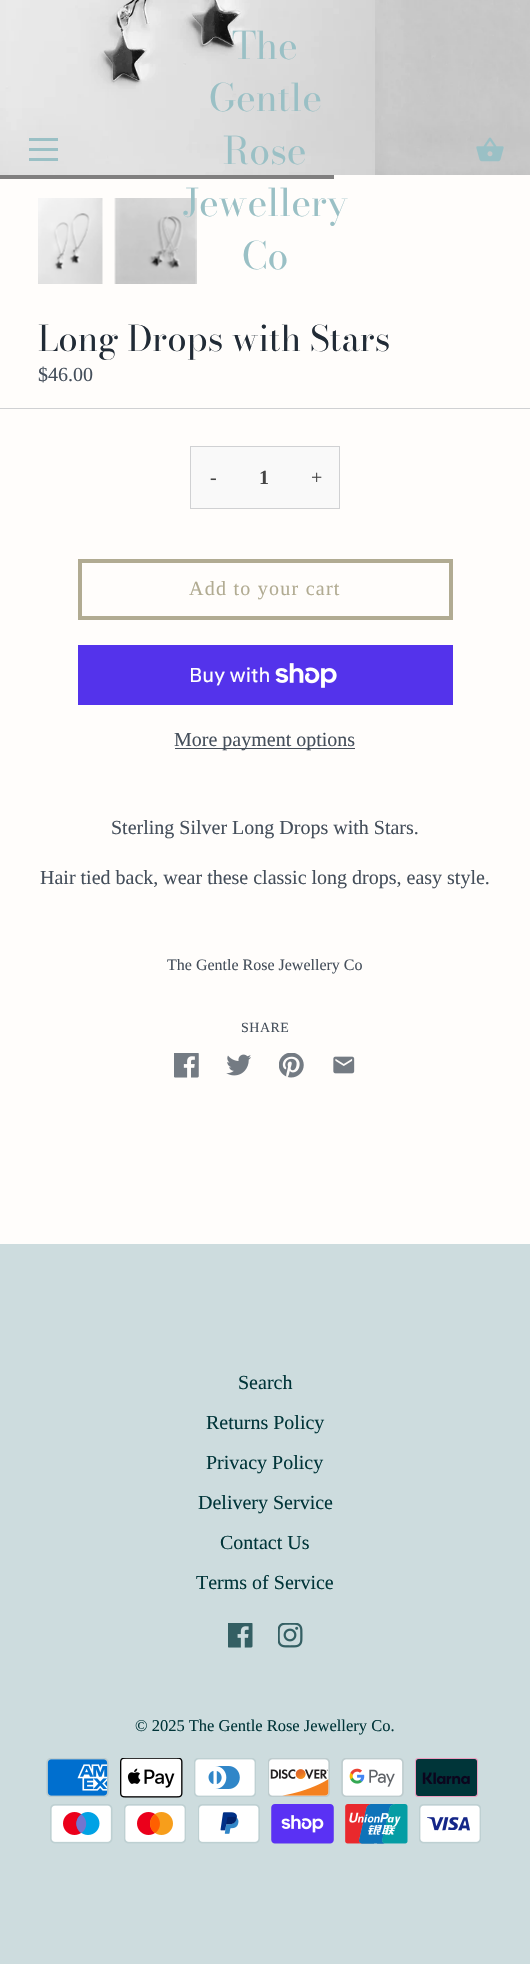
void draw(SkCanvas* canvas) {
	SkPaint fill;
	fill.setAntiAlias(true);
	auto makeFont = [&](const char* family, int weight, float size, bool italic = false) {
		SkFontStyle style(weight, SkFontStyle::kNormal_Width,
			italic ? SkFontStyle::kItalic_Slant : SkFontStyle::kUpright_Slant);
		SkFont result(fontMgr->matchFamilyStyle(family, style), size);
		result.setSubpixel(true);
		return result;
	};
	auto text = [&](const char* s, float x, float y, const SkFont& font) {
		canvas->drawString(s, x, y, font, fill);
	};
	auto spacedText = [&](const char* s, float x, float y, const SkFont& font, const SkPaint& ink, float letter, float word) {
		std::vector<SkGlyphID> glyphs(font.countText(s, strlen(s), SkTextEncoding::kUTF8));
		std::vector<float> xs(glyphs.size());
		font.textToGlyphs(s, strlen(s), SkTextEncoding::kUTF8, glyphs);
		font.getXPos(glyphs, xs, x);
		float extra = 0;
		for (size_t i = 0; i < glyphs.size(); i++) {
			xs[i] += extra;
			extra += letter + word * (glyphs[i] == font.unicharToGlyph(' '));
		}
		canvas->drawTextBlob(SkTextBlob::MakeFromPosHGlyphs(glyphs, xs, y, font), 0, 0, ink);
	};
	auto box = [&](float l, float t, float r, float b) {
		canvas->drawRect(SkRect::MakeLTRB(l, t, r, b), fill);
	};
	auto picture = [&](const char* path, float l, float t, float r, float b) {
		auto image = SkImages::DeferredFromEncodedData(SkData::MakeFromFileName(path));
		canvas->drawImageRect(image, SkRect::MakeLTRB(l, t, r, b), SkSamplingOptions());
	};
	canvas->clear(0xFFFFFDFB);
	picture("image1.png", 0, 0, 375, 175);
	fill.setColor(0xFF9AC0C5);
	box(29, 138, 58, 141);
	box(29, 148, 58, 151);
	box(29, 158, 58, 161);
	picture("image2.png", 375, 0, 530, 175);
	picture("image0.png", 476, 137, 504, 162);
	fill.setColor(0xFF807F7F);
	box(0, 175, 334, 179);
	fill.setColor(0xFFD0D1D3);
	box(0, 408, 530, 409);
	picture("image3.png", 38, 198, 103, 284);
	picture("image4.png", 114, 198, 197, 284);
	fill.setColor(0xFFF9F9F9);
	canvas->drawRect(SkRect::MakeLTRB(190.5f, 446.5f, 339.5f, 508.5f), fill);
	fill.setStyle(SkPaint::kStroke_Style);
	fill.setStrokeWidth(1);
	fill.setColor(0xFFD0D1D3);
	canvas->drawRect(SkRect::MakeLTRB(190.5f, 446.5f, 339.5f, 508.5f), fill);
	fill.setStrokeWidth(4);
	fill.setColor(0xFFB1AB92);
	canvas->drawRect(SkRect::MakeLTRB(80, 561, 451, 618), fill);
	fill.setStyle(SkPaint::kFill_Style);
	fill.setColor(0xFF5433EB);
	box(78, 645, 453, 705);
	picture("image5.png", 275, 663, 337, 688);
	fill.setColor(0xFF454F5B);
	box(175, 748, 355, 749);
	picture("image6.png", 174, 1053, 199, 1078);
	picture("image7.png", 226, 1054, 251, 1076);
	picture("image8.png", 279, 1053, 304, 1078);
	picture("image9.png", 333, 1056, 355, 1074);
	fill.setColor(0xFFCDDCDE);
	box(0, 1244, 530, 1964);
	picture("image10.png", 228, 1623, 253, 1648);
	picture("image11.png", 278, 1623, 303, 1648);
	picture("image12.png", 46, 1758, 109, 1797);
	picture("image13.png", 120, 1758, 183, 1798);
	picture("image14.png", 194, 1758, 256, 1797);
	picture("image15.png", 268, 1758, 330, 1797);
	picture("image16.png", 341, 1758, 404, 1797);
	picture("image17.png", 415, 1758, 478, 1797);
	picture("image18.png", 50, 1804, 113, 1844);
	picture("image19.png", 124, 1804, 186, 1844);
	picture("image20.png", 198, 1804, 260, 1844);
	picture("image21.png", 271, 1804, 334, 1844);
	picture("image22.png", 345, 1804, 408, 1844);
	picture("image23.png", 419, 1804, 481, 1844);
	auto font1 = makeFont("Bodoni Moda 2", 400, 37.5f);
	fill.setColor(0xFF9AC0C5);
	text("The", 232, 59, font1);
	text("Gentle", 209, 111, font1);
	text("Rose", 223, 164, font1);
	text("Jewellery", 183, 216, font1);
	text("Co", 242, 269, font1);
	auto font2 = makeFont("Bodoni Moda", 400, 35);
	fill.setColor(0xFF212B36);
	text("Long Drops with Stars", 38, 351, font2);
	auto font3 = makeFont("Liberation Serif", 400, 20);
	fill.setColor(0xFF454F5B);
	text("$46.00", 38, 381, font3);
	fill.setColor(0xFF444444);
	text("-", 210, 484, font3);
	auto font4 = makeFont("Liberation Serif", 700, 20);
	spacedText("1", 259, 484, font4, fill, 1, 0);
	text("+", 311, 484, font3);
	fill.setColor(0xFFB1AB92);
	spacedText("Add to your cart", 189, 595, font3, fill, 1.25f, 0);
	auto font5 = makeFont("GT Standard", 400, 20);
	fill.setColor(0xFFFFFFFF);
	text("Buy with", 189, 682, font5);
	fill.setColor(0xFF454F5B);
	text("More payment options", 174, 746, font3);
	text("Sterling Silver Long Drops with Stars.", 111, 834, font3);
	text("Hair tied back, wear these classic long drops, easy style.", 40, 884, font3);
	auto font6 = makeFont("Liberation Serif", 400, 16);
	text("The Gentle Rose Jewellery Co", 167, 970, font6);
	auto font7 = makeFont("Liberation Serif", 400, 14);
	spacedText("SHARE", 241, 1032, font7, fill, 0.5f, 0);
	fill.setColor(0xFF003539);
	text("Search", 238, 1389, font3);
	text("Returns Policy", 206, 1429, font3);
	text("Privacy Policy", 206, 1469, font3);
	text("Delivery Service", 198, 1509, font3);
	text("Contact Us", 220, 1549, font3);
	text("Terms of Service", 196, 1589, font3);
	auto font8 = makeFont("Liberation Serif", 400, 16.5f);
	text("© 2025 The Gentle Rose Jewellery Co.", 135, 1731, font8);
}
